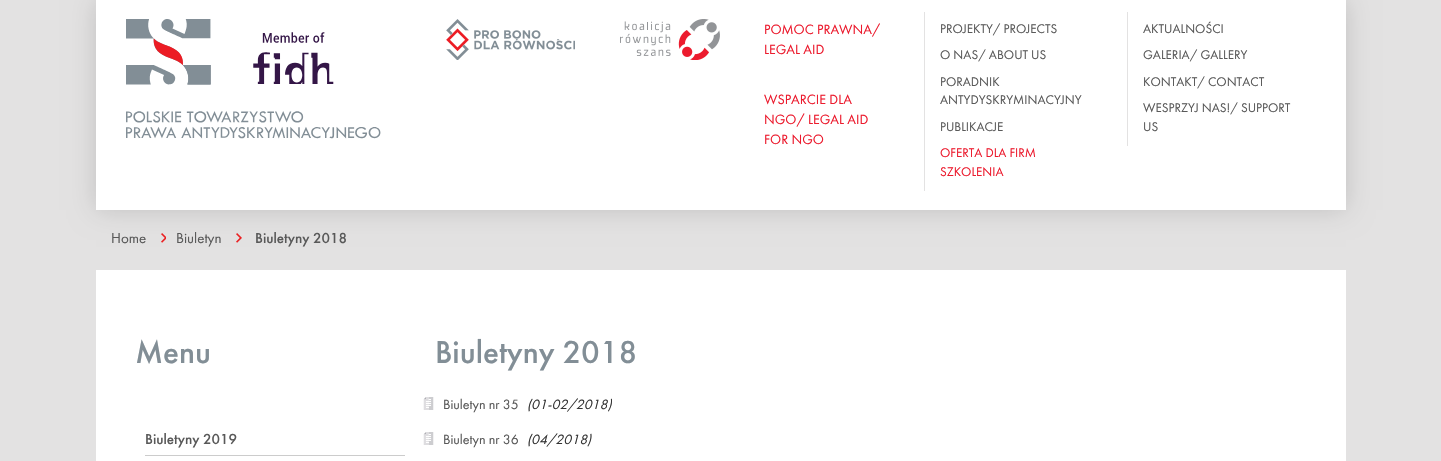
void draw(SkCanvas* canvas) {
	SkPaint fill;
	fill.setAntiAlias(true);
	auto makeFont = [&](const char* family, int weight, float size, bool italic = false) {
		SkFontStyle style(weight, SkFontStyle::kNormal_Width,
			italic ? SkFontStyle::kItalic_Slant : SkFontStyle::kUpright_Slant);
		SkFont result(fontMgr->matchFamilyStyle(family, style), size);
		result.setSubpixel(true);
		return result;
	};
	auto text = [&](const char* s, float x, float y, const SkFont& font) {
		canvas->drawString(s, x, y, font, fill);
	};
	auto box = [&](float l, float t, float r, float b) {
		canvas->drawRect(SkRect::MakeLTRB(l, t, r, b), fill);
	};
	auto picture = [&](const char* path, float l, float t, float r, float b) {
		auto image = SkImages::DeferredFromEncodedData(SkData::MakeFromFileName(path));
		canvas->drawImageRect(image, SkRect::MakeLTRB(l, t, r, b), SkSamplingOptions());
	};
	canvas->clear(0xFFE3E2E2);
	picture("image3.png", 161, 233, 166, 243);
	picture("image4.png", 236, 233, 242, 243);
	fill.setColor(0x26000000);
	fill.setMaskFilter(SkMaskFilter::MakeBlur(kNormal_SkBlurStyle, 12.5f));
	canvas->drawRect(SkRect::MakeLTRB(96, 0, 1346, 210), fill);
	fill.setMaskFilter(nullptr);
	fill.setColor(0xFFFFFFFF);
	box(96, 0, 1346, 210);
	picture("image0.png", 126, 19, 381, 139);
	picture("image1.png", 446, 19, 575, 60);
	picture("image2.png", 620, 19, 720, 60);
	fill.setColor(0xFFE3E2E2);
	box(924, 12, 925, 191);
	box(1127, 12, 1128, 146);
	fill.setColor(0xFFFFFFFF);
	box(96, 270, 1346, 461);
	fill.setColor(0xFFCCCCCC);
	box(145, 455, 405, 456);
	picture("image5.png", 423, 397, 434, 410);
	picture("image5.png", 423, 432, 434, 445);
	auto font1 = makeFont("Futura PT", 400, 14);
	fill.setColor(0xFFEC1B2E);
	text("POMOC PRAWNA/", 764, 34, font1);
	text("LEGAL AID", 764, 54, font1);
	text("WSPARCIE DLA", 764, 104, font1);
	text("NGO/ LEGAL AID", 764, 124, font1);
	text("FOR NGO", 764, 144, font1);
	auto font2 = makeFont("Futura PT", 400, 13);
	fill.setColor(0xFF595959);
	text("PROJEKTY/ PROJECTS", 940, 33, font2);
	text("O NAS/ ABOUT US", 940, 59, font2);
	text("PORADNIK", 940, 86, font2);
	text("ANTYDYSKRYMINACYJNY", 940, 104, font2);
	text("PUBLIKACJE", 940, 131, font2);
	fill.setColor(0xFFEC1B2E);
	text("OFERTA DLA FIRM", 940, 157, font2);
	text("SZKOLENIA", 940, 176, font2);
	fill.setColor(0xFF595959);
	text("AKTUALNOŚCI", 1143, 33, font2);
	text("GALERIA/ GALLERY", 1143, 59, font2);
	text("KONTAKT/ CONTACT", 1143, 86, font2);
	text("WESPRZYJ NAS!/ SUPPORT", 1143, 112, font2);
	text("US", 1143, 131, font2);
	auto font3 = makeFont("Futura PT", 400, 15);
	text("Home", 111, 243, font3);
	text("Biuletyn", 176, 243, font3);
	auto font4 = makeFont("Futura PT", 500, 15);
	text("Biuletyny 2018", 255, 243, font4);
	auto font5 = makeFont("Futura PT", 500, 33);
	fill.setColor(0xFF828E96);
	text("Menu", 135, 363, font5);
	fill.setColor(0xFF595959);
	text("Biuletyny 2019", 145, 444, font4);
	fill.setColor(0xFF828E96);
	text("Biuletyny 2018", 435, 363, font5);
	fill.setColor(0xFF595959);
	text("Biuletyn nr 35", 443, 409, font1);
	auto font6 = makeFont("Futura PT", 400, 14, true);
	fill.setColor(0xFF333333);
	text("(01-02/2018)", 527, 409, font6);
	fill.setColor(0xFF595959);
	text("Biuletyn nr 36", 443, 444, font1);
	fill.setColor(0xFF333333);
	text("(04/2018)", 527, 444, font6);
}
